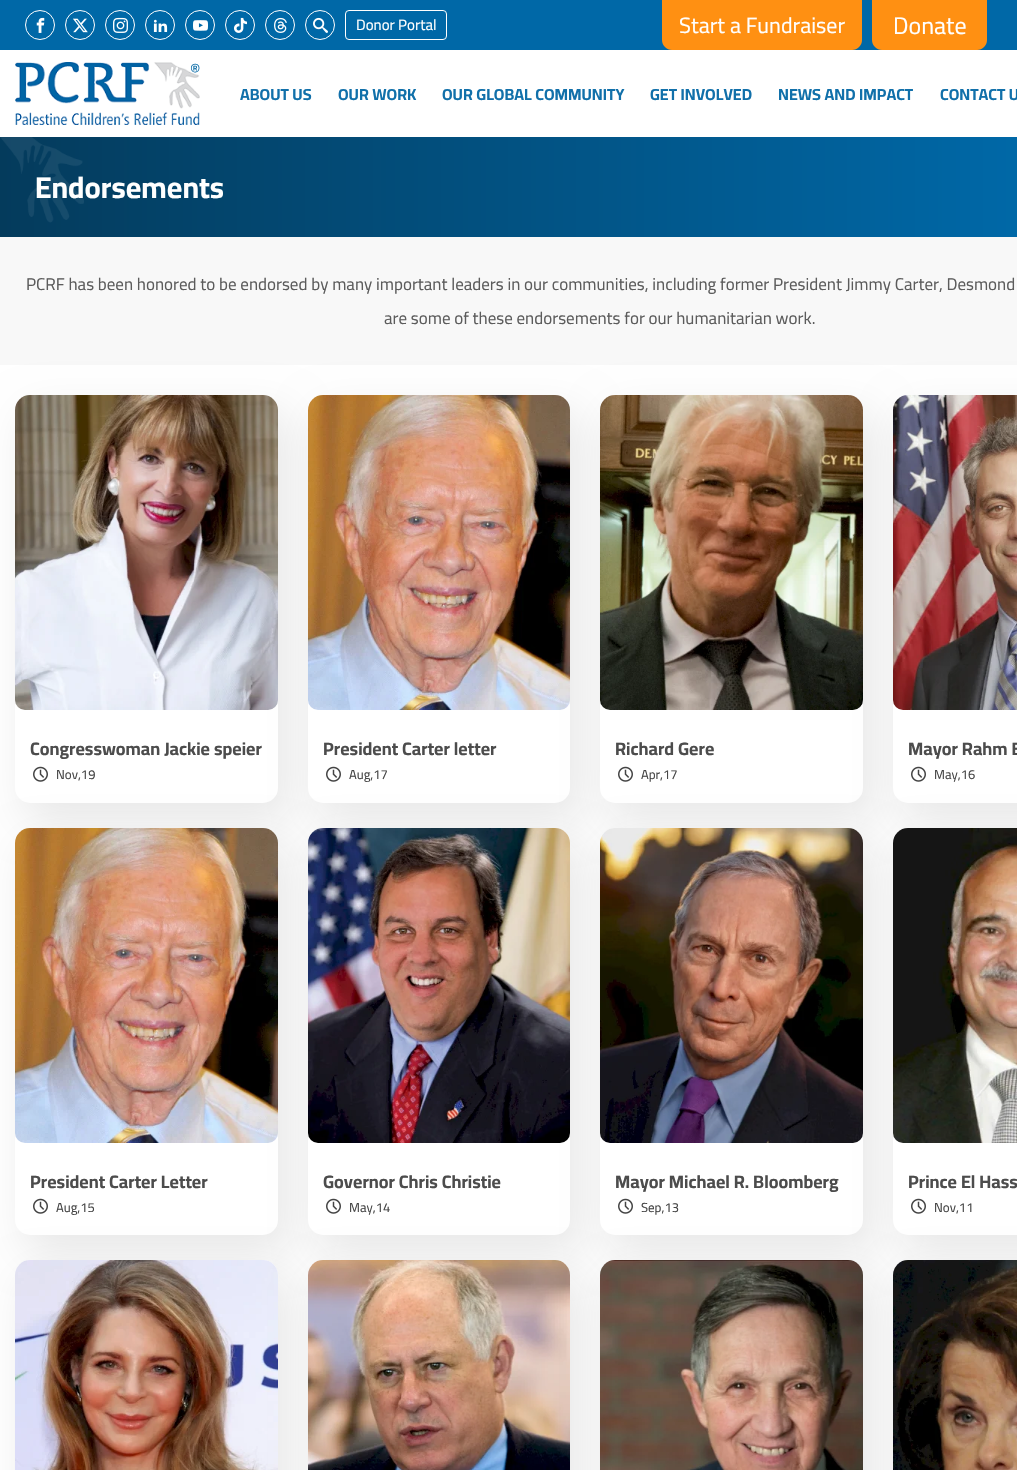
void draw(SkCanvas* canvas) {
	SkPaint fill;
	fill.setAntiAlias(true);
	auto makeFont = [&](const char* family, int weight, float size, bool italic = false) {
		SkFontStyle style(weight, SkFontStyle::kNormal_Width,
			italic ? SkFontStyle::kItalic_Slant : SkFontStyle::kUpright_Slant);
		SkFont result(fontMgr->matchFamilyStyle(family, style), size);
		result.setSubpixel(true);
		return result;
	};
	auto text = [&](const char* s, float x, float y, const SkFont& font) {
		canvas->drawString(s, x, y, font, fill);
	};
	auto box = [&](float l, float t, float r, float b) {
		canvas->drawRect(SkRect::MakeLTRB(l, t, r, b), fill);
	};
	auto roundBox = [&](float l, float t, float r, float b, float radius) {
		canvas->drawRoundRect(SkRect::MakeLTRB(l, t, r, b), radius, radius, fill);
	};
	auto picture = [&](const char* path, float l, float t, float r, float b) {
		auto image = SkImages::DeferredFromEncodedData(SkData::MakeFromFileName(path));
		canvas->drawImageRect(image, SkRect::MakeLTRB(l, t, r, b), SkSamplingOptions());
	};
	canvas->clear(0xFFF8F8F8);
	fill.setColor(0xFF0068A7);
	box(0, 0, 1017, 50);
	fill.setStyle(SkPaint::kStroke_Style);
	fill.setStrokeWidth(1);
	fill.setColor(0xFFFFFFFF);
	canvas->drawCircle(40, 25, 14.5f, fill);
	picture("image0.png", 36, 17, 45, 33);
	canvas->drawCircle(80, 25, 14.5f, fill);
	picture("image1.png", 73, 18, 88, 33);
	canvas->drawCircle(120, 25, 14.5f, fill);
	picture("image2.png", 113, 17, 128, 33);
	canvas->drawCircle(160, 25, 14.5f, fill);
	picture("image3.png", 153, 19, 168, 32);
	canvas->drawCircle(200, 25, 14.5f, fill);
	picture("image4.png", 193, 20, 208, 31);
	canvas->drawCircle(240, 25, 14.5f, fill);
	picture("image5.png", 234, 17, 247, 33);
	canvas->drawCircle(280, 25, 14.5f, fill);
	picture("image6.png", 274, 17, 287, 33);
	canvas->drawCircle(320, 25, 14.5f, fill);
	picture("image7.png", 313, 17, 328, 33);
	canvas->drawRoundRect(SkRect::MakeLTRB(345.5f, 10.5f, 446.5f, 39.5f), 3.5f, 3.5f, fill);
	fill.setStyle(SkPaint::kFill_Style);
	fill.setColor(0xFFFF9012);
	canvas->drawPath(SkPathBuilder().moveTo(662, 0).lineTo(862, 0).lineTo(862, 40).cubicTo(862, 45.5f, 857.5f, 50, 852, 50).lineTo(672, 50).cubicTo(666.5f, 50, 662, 45.5f, 662, 40).close().detach(), fill);
	canvas->drawPath(SkPathBuilder().moveTo(872, 0).lineTo(987, 0).lineTo(987, 40).cubicTo(987, 45.5f, 982.5f, 50, 977, 50).lineTo(882, 50).cubicTo(876.5f, 50, 872, 45.5f, 872, 40).close().detach(), fill);
	fill.setColor(0xFFFFFFFF);
	box(0, 50, 1017, 137);
	picture("image8.png", 15, 62, 200, 125);
	{
		const SkColor colors[] = {0xFF043B5C, 0xFF0068A7};
		const float stops[] = {0, 1};
		const SkPoint ends[] = {{0, 187}, {1017, 187}};
		fill.setShader(SkGradientShader::MakeLinear(ends, colors, stops, 2, SkTileMode::kClamp));
		fill.setAlpha(255);
	}
	box(0, 137, 1017, 237);
	picture("image9.png", 0, 137, 84, 223);
	fill.setShader(nullptr);
	fill.setColor(0xFFFFFFFF);
	box(0, 365, 1017, 1470);
	fill.setColor(0x17000000);
	fill.setMaskFilter(SkMaskFilter::MakeBlur(kNormal_SkBlurStyle, 21.5f));
	canvas->drawRoundRect(SkRect::MakeLTRB(25, 412, 288, 820), 15, 15, fill);
	fill.setMaskFilter(nullptr);
	fill.setColor(0xFFFFFFFF);
	roundBox(15, 395, 278, 803, 15);
	picture("image10.png", 15, 395, 278, 710);
	picture("image11.png", 33, 766, 48, 782);
	fill.setColor(0x17000000);
	fill.setMaskFilter(SkMaskFilter::MakeBlur(kNormal_SkBlurStyle, 21.5f));
	canvas->drawRoundRect(SkRect::MakeLTRB(318, 412, 580, 820), 15, 15, fill);
	fill.setMaskFilter(nullptr);
	fill.setColor(0xFFFFFFFF);
	roundBox(308, 395, 570, 803, 15);
	picture("image12.png", 308, 395, 570, 710);
	picture("image11.png", 326, 766, 341, 782);
	fill.setColor(0x17000000);
	fill.setMaskFilter(SkMaskFilter::MakeBlur(kNormal_SkBlurStyle, 21.5f));
	canvas->drawRoundRect(SkRect::MakeLTRB(610, 412, 873, 820), 15, 15, fill);
	fill.setMaskFilter(nullptr);
	fill.setColor(0xFFFFFFFF);
	roundBox(600, 395, 863, 803, 15);
	picture("image13.png", 600, 395, 863, 710);
	picture("image11.png", 618, 766, 633, 782);
	fill.setColor(0x17000000);
	fill.setMaskFilter(SkMaskFilter::MakeBlur(kNormal_SkBlurStyle, 21.5f));
	canvas->drawRoundRect(SkRect::MakeLTRB(903, 412, 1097, 820), 15, 15, fill);
	fill.setMaskFilter(nullptr);
	fill.setColor(0xFFFFFFFF);
	roundBox(893, 395, 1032, 803, 15);
	picture("image14.png", 893, 395, 1017, 710);
	picture("image11.png", 911, 766, 926, 782);
	fill.setColor(0x17000000);
	fill.setMaskFilter(SkMaskFilter::MakeBlur(kNormal_SkBlurStyle, 21.5f));
	canvas->drawRoundRect(SkRect::MakeLTRB(25, 845, 288, 1252), 15, 15, fill);
	fill.setMaskFilter(nullptr);
	fill.setColor(0xFFFFFFFF);
	roundBox(15, 828, 278, 1235, 15);
	picture("image15.png", 15, 828, 278, 1143);
	picture("image11.png", 33, 1198, 48, 1214);
	fill.setColor(0x17000000);
	fill.setMaskFilter(SkMaskFilter::MakeBlur(kNormal_SkBlurStyle, 21.5f));
	canvas->drawRoundRect(SkRect::MakeLTRB(318, 845, 580, 1252), 15, 15, fill);
	fill.setMaskFilter(nullptr);
	fill.setColor(0xFFFFFFFF);
	roundBox(308, 828, 570, 1235, 15);
	picture("image16.png", 308, 828, 570, 1143);
	picture("image11.png", 326, 1198, 341, 1214);
	fill.setColor(0x17000000);
	fill.setMaskFilter(SkMaskFilter::MakeBlur(kNormal_SkBlurStyle, 21.5f));
	canvas->drawRoundRect(SkRect::MakeLTRB(610, 845, 873, 1252), 15, 15, fill);
	fill.setMaskFilter(nullptr);
	fill.setColor(0xFFFFFFFF);
	roundBox(600, 828, 863, 1235, 15);
	picture("image17.png", 600, 828, 863, 1143);
	picture("image11.png", 618, 1198, 633, 1214);
	fill.setColor(0x17000000);
	fill.setMaskFilter(SkMaskFilter::MakeBlur(kNormal_SkBlurStyle, 21.5f));
	canvas->drawRoundRect(SkRect::MakeLTRB(903, 845, 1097, 1252), 15, 15, fill);
	fill.setMaskFilter(nullptr);
	fill.setColor(0xFFFFFFFF);
	roundBox(893, 828, 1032, 1235, 15);
	picture("image18.png", 893, 828, 1017, 1143);
	picture("image11.png", 911, 1198, 926, 1214);
	fill.setColor(0x17000000);
	fill.setMaskFilter(SkMaskFilter::MakeBlur(kNormal_SkBlurStyle, 21.5f));
	canvas->drawRoundRect(SkRect::MakeLTRB(25, 1277, 288, 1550), 15, 15, fill);
	fill.setMaskFilter(nullptr);
	fill.setColor(0xFFFFFFFF);
	roundBox(15, 1260, 278, 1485, 15);
	picture("image19.png", 15, 1260, 278, 1470);
	fill.setColor(0x17000000);
	fill.setMaskFilter(SkMaskFilter::MakeBlur(kNormal_SkBlurStyle, 21.5f));
	canvas->drawRoundRect(SkRect::MakeLTRB(318, 1277, 580, 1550), 15, 15, fill);
	fill.setMaskFilter(nullptr);
	fill.setColor(0xFFFFFFFF);
	roundBox(308, 1260, 570, 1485, 15);
	picture("image20.png", 308, 1260, 570, 1470);
	fill.setColor(0x17000000);
	fill.setMaskFilter(SkMaskFilter::MakeBlur(kNormal_SkBlurStyle, 21.5f));
	canvas->drawRoundRect(SkRect::MakeLTRB(610, 1277, 873, 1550), 15, 15, fill);
	fill.setMaskFilter(nullptr);
	fill.setColor(0xFFFFFFFF);
	roundBox(600, 1260, 863, 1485, 15);
	picture("image21.png", 600, 1260, 863, 1470);
	fill.setColor(0x17000000);
	fill.setMaskFilter(SkMaskFilter::MakeBlur(kNormal_SkBlurStyle, 21.5f));
	canvas->drawRoundRect(SkRect::MakeLTRB(903, 1277, 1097, 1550), 15, 15, fill);
	fill.setMaskFilter(nullptr);
	fill.setColor(0xFFFFFFFF);
	roundBox(893, 1260, 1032, 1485, 15);
	picture("image22.png", 893, 1260, 1017, 1470);
	auto font1 = makeFont("Cairo", 400, 15);
	text("Donor Portal", 356, 30, font1);
	auto font2 = makeFont("Cairo", 400, 22);
	text("Start a Fundraiser", 679, 33, font2);
	auto font3 = makeFont("Cairo", 400, 24);
	text("Donate", 893, 34, font3);
	auto font4 = makeFont("Cairo", 400, 16);
	fill.setColor(0xFF1170AA);
	text("®", 190, 75, font4);
	auto font5 = makeFont("Cairo", 700, 16);
	text("ABOUT US", 240, 100, font5);
	text("OUR WORK", 338, 100, font5);
	text("OUR GLOBAL COMMUNITY", 442, 100, font5);
	text("GET INVOLVED", 650, 100, font5);
	text("NEWS AND IMPACT", 778, 100, font5);
	text("CONTACT U", 940, 100, font5);
	auto font6 = makeFont("Cairo", 700, 30);
	fill.setColor(0xFFFFFFFF);
	text("Endorsements", 35, 198, font6);
	auto font7 = makeFont("Cairo", 400, 17);
	fill.setColor(0xFF5C5C5C);
	text("PCRF has been honored to be endorsed by many important leaders in our communities, including former President Jimmy Carter, Desmond", 26, 290, font7);
	text("are some of these endorsements for our humanitarian work.", 384, 324, font7);
	auto font8 = makeFont("Cairo", 700, 18);
	fill.setColor(0xFF4C4C4C);
	text("Congresswoman Jackie speier", 30, 755, font8);
	auto font9 = makeFont("Cairo", 400, 13);
	fill.setColor(0xFF444444);
	text("Nov,19", 56, 779, font9);
	fill.setColor(0xFF4C4C4C);
	text("President Carter letter", 323, 755, font8);
	fill.setColor(0xFF444444);
	text("Aug,17", 349, 779, font9);
	fill.setColor(0xFF4C4C4C);
	text("Richard Gere", 615, 755, font8);
	fill.setColor(0xFF444444);
	text("Apr,17", 641, 779, font9);
	fill.setColor(0xFF4C4C4C);
	text("Mayor Rahm E", 908, 755, font8);
	fill.setColor(0xFF444444);
	text("May,16", 934, 779, font9);
	fill.setColor(0xFF4C4C4C);
	text("President Carter Letter", 30, 1188, font8);
	fill.setColor(0xFF444444);
	text("Aug,15", 56, 1212, font9);
	fill.setColor(0xFF4C4C4C);
	text("Governor Chris Christie", 323, 1188, font8);
	fill.setColor(0xFF444444);
	text("May,14", 349, 1212, font9);
	fill.setColor(0xFF4C4C4C);
	text("Mayor Michael R. Bloomberg", 615, 1188, font8);
	fill.setColor(0xFF444444);
	text("Sep,13", 641, 1212, font9);
	fill.setColor(0xFF4C4C4C);
	text("Prince El Hass", 908, 1188, font8);
	fill.setColor(0xFF444444);
	text("Nov,11", 934, 1212, font9);
}
